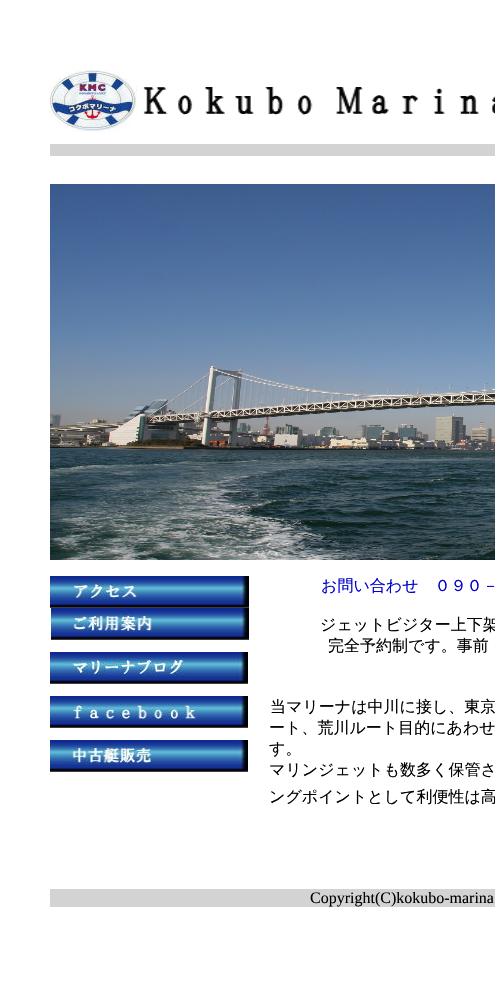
void draw(SkCanvas* canvas) {
	SkPaint fill;
	fill.setAntiAlias(true);
	auto makeFont = [&](const char* family, int weight, float size, bool italic = false) {
		SkFontStyle style(weight, SkFontStyle::kNormal_Width,
			italic ? SkFontStyle::kItalic_Slant : SkFontStyle::kUpright_Slant);
		SkFont result(fontMgr->matchFamilyStyle(family, style), size);
		result.setSubpixel(true);
		return result;
	};
	auto text = [&](const char* s, float x, float y, const SkFont& font) {
		canvas->drawString(s, x, y, font, fill);
	};
	auto box = [&](float l, float t, float r, float b) {
		canvas->drawRect(SkRect::MakeLTRB(l, t, r, b), fill);
	};
	auto picture = [&](const char* path, float l, float t, float r, float b) {
		auto image = SkImages::DeferredFromEncodedData(SkData::MakeFromFileName(path));
		canvas->drawImageRect(image, SkRect::MakeLTRB(l, t, r, b), SkSamplingOptions());
	};
	canvas->clear(0xFFFFFFFF);
	picture("image0.png", 50, 70, 137, 132);
	picture("image1.png", 143, 87, 495, 115);
	fill.setColor(0xFFD3D3D3);
	box(50, 144, 495, 156);
	picture("image2.png", 50, 184, 495, 560);
	picture("image3.png", 50, 576, 249, 608);
	picture("image4.png", 51, 608, 249, 640);
	picture("image5.png", 50, 652, 248, 684);
	picture("image6.png", 50, 696, 248, 728);
	picture("image7.png", 50, 740, 248, 772);
	box(50, 889, 495, 907);
	auto font1 = makeFont("WenQuanYi Zen Hei", 500, 16);
	fill.setColor(0xFF0000CC);
	text("お問い合わせ　０９０－", 321, 591, font1);
	fill.setColor(0xFF000000);
	text("ジェットビジター上下架", 320, 630, font1);
	text("完全予約制です。事前", 328, 651, font1);
	text("当マリーナは中川に接し、東京", 270, 712, font1);
	text("ート、荒川ルート目的にあわせ", 269, 733, font1);
	text("す。", 269, 754, font1);
	text("マリンジェットも数多く保管さ", 269, 775, font1);
	text("ングポイントとして利便性は高", 269, 802, font1);
	auto font2 = makeFont("Liberation Serif", 400, 16);
	text("Copyright(C)kokubo-marina", 310, 903, font2);
}
